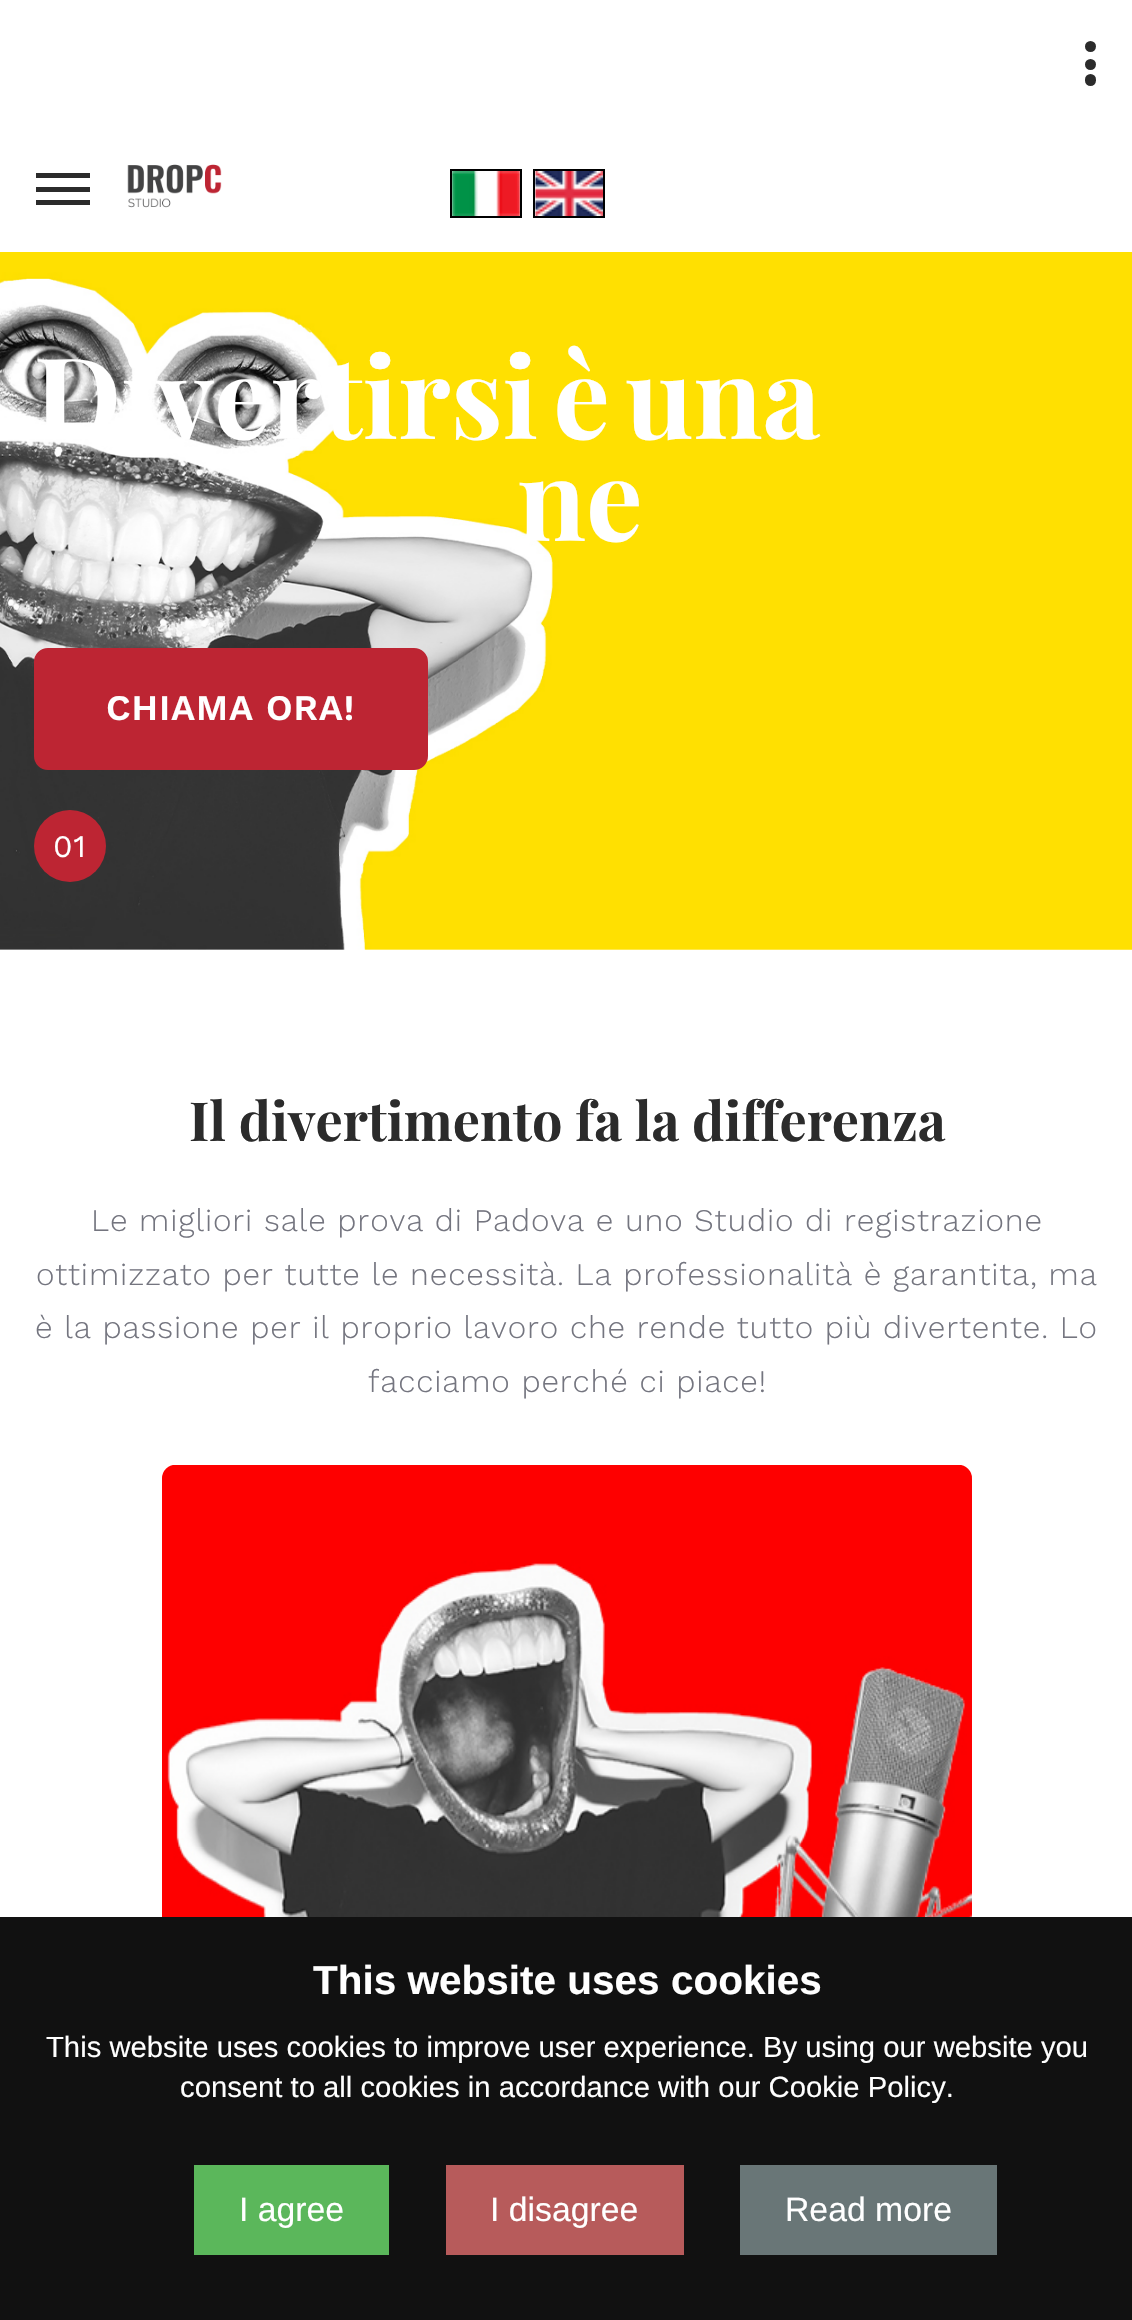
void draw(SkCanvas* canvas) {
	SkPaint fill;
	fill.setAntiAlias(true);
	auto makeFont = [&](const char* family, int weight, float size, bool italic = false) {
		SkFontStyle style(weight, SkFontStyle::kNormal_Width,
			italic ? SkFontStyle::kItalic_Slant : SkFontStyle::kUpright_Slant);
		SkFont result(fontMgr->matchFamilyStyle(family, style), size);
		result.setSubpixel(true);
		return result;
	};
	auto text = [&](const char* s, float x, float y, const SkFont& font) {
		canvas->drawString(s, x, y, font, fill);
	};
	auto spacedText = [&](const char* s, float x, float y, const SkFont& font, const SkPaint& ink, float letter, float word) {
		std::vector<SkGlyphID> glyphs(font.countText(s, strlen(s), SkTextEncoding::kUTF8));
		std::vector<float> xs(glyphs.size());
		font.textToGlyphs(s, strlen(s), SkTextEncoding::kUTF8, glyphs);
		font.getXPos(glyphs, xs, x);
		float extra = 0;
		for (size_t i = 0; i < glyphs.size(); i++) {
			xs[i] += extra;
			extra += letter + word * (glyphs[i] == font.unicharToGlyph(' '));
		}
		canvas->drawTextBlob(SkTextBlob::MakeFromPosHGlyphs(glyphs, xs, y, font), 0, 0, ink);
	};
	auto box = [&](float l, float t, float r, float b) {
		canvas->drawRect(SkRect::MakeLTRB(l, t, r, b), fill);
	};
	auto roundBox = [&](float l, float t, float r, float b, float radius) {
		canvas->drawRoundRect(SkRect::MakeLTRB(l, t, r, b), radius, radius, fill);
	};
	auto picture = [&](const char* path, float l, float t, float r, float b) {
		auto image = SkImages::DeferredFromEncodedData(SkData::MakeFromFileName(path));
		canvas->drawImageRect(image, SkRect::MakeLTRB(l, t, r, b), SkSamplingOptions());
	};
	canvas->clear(0xFFFFFFFF);
	fill.setColor(0xFF2B2B2B);
	canvas->drawCircle(1090.5f, 64.5f, 5.5f, fill);
	canvas->drawCircle(1090.5f, 46.5f, 5.5f, fill);
	roundBox(1085, 74, 1096, 86, 5.5f);
	box(36, 187, 90, 192);
	box(36, 173, 90, 178);
	box(36, 200, 90, 205);
	picture("image0.png", 127, 164, 222, 208);
	fill.setStyle(SkPaint::kStroke_Style);
	fill.setStrokeWidth(2);
	fill.setColor(0xFF000000);
	canvas->drawRect(SkRect::MakeLTRB(451, 170, 521, 217), fill);
	picture("image1.png", 452, 171, 520, 216);
	canvas->drawRect(SkRect::MakeLTRB(534, 170, 604, 217), fill);
	picture("image2.png", 535, 171, 603, 216);
	picture("image5.png", 0, 949, 1132, 950);
	picture("image3.png", 0, 949, 1132, 950);
	fill.setStyle(SkPaint::kFill_Style);
	{
		const SkColor colors[] = {0xB3FFFFFF, 0x4DFFFFFF};
		const float stops[] = {0, 1};
		const SkPoint ends[] = {{0, 601}, {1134, 601}};
		fill.setShader(SkGradientShader::MakeLinear(ends, colors, stops, 2, SkTileMode::kClamp));
		fill.setAlpha(255);
	}
	box(0, 949, 1132, 950);
	picture("image4.png", 0, 252, 1132, 950);
	fill.setShader(nullptr);
	fill.setColor(0xFFBD2533);
	canvas->drawRoundRect(SkRect::MakeLTRB(35, 649, 427, 769), 13, 13, fill);
	fill.setStyle(SkPaint::kStroke_Style);
	canvas->drawRoundRect(SkRect::MakeLTRB(35, 649, 427, 769), 13, 13, fill);
	fill.setStyle(SkPaint::kFill_Style);
	canvas->drawCircle(70, 846, 36, fill);
	picture("image6.png", 162, 1465, 972, 1917);
	fill.setColor(0xFF111111);
	box(0, 1917, 1132, 2320);
	fill.setColor(0xFF5BB75B);
	box(194, 2165, 389, 2255);
	fill.setColor(0xFFB75B5B);
	box(446, 2165, 684, 2255);
	fill.setColor(0xFF697677);
	box(740, 2165, 997, 2255);
	auto font1 = makeFont("Playfair Display", 700, 112.5f);
	fill.setColor(0xFFFFFFFF);
	spacedText("Divertirsi è una", 34, 439, font1, fill, 0, -11);
	text("ne", 517, 541, font1);
	auto font2 = makeFont("Work Sans", 600, 36);
	spacedText("CHIAMA ORA!", 106, 720, font2, fill, 0.88f, 0);
	auto font3 = makeFont("Work Sans", 400, 31.5f);
	spacedText("01", 53, 857, font3, fill, 0.88f, 0);
	auto font4 = makeFont("Playfair Display", 700, 54);
	fill.setColor(0xFF2B2B2B);
	text("Il divertimento fa la differenza", 189, 1141, font4);
	auto font5 = makeFont("Work Sans", 300, 31.5f);
	fill.setColor(0xFF74757F);
	spacedText("Le migliori sale prova di Padova e uno Studio di registrazione", 91, 1231, font5, fill, 0.88f, 0);
	spacedText("ottimizzato per tutte le necessità. La professionalità è garantita, ma", 36, 1285, font5, fill, 0.88f, 0);
	spacedText("è la passione per il proprio lavoro che rende tutto più divertente. Lo", 35, 1338, font5, fill, 0.88f, 0);
	spacedText("facciamo perché ci piace!", 368, 1392, font5, fill, 0.88f, 0);
	auto font6 = makeFont("Liberation Sans", 700, 40.5f);
	fill.setColor(0xFFFFFFFF);
	text("This website uses cookies", 313, 1994, font6);
	auto font7 = makeFont("Liberation Sans", 400, 29.25f);
	text("This website uses cookies to improve user experience. By using our website you", 46, 2057, font7);
	text("consent to all cookies in accordance with our Cookie Policy.", 180, 2097, font7);
	auto font8 = makeFont("Liberation Sans", 400, 33.75f);
	text("I agree", 239, 2221, font8);
	text("I disagree", 490, 2221, font8);
	text("Read more", 785, 2221, font8);
}
